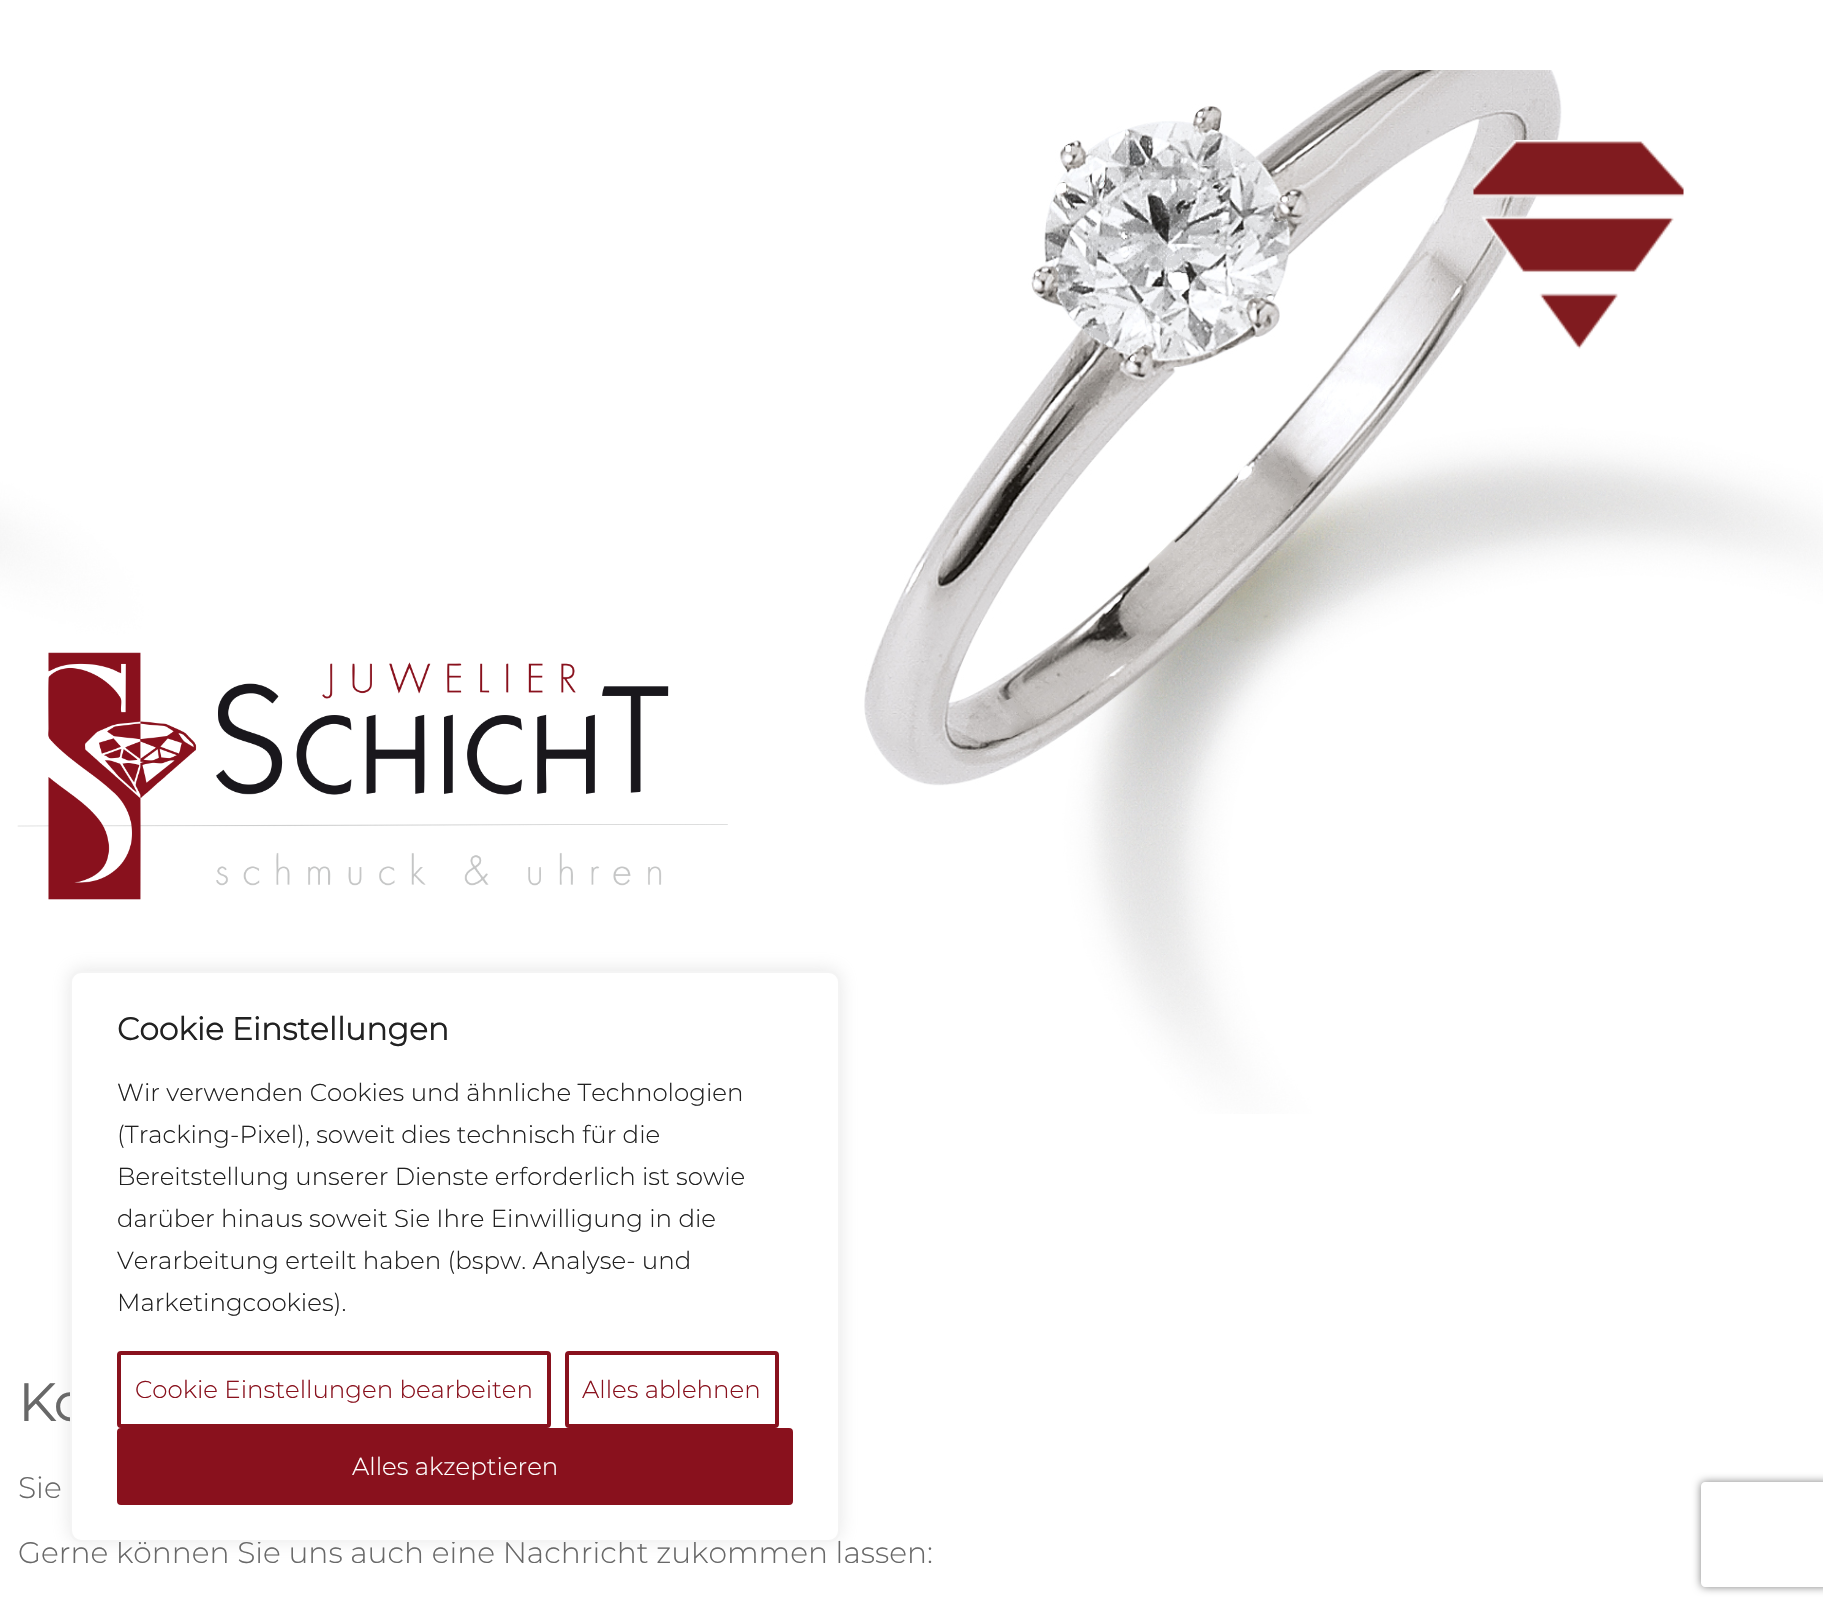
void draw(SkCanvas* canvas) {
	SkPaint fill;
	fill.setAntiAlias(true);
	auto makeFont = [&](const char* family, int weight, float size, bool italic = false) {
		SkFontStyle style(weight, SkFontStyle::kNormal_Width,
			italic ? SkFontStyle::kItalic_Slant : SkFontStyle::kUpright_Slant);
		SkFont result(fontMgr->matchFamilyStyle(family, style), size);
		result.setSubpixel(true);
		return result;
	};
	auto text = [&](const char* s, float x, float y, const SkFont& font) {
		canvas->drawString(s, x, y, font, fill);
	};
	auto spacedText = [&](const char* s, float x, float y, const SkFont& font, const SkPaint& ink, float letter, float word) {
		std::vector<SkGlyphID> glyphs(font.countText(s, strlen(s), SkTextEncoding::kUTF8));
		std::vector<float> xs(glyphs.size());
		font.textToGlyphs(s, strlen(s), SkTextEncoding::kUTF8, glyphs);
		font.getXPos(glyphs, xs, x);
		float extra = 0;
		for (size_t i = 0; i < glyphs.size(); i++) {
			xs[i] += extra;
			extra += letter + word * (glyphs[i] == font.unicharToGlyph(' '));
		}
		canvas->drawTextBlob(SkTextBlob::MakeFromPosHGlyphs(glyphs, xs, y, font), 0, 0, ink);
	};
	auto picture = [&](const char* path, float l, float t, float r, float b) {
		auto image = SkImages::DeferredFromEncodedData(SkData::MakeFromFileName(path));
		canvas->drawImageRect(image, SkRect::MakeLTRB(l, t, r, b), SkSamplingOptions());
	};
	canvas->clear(0xFFFFFFFF);
	picture("image1.png", 0, 70, 1823, 1114);
	fill.setColor(0x4DACABAB);
	fill.setMaskFilter(SkMaskFilter::MakeBlur(kNormal_SkBlurStyle, 9));
	canvas->drawRoundRect(SkRect::MakeLTRB(70, 970, 840, 1540), 11, 11, fill);
	fill.setMaskFilter(nullptr);
	picture("image0.png", 1473, 140, 1684, 349);
	picture("image2.png", 17, 652, 728, 900);
	canvas->save();
	canvas->clipPath(SkPathBuilder(SkPathFillType::kEvenOdd).moveTo(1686, 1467).lineTo(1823, 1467).lineTo(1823, 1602).lineTo(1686, 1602).close().moveTo(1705, 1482).lineTo(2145, 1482).cubicTo(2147, 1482, 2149, 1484, 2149, 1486).lineTo(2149, 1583).cubicTo(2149, 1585, 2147, 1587, 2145, 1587).lineTo(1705, 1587).cubicTo(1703, 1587, 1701, 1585, 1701, 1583).lineTo(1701, 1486).cubicTo(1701, 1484, 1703, 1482, 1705, 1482).close().detach(), true);
	fill.setColor(0xFF808080);
	fill.setMaskFilter(SkMaskFilter::MakeBlur(kNormal_SkBlurStyle, 4.5f));
	canvas->drawRoundRect(SkRect::MakeLTRB(1701, 1482, 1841, 1587), 4, 4, fill);
	fill.setMaskFilter(nullptr);
	canvas->restore();
	auto font1 = makeFont("Montserrat", 700, 52);
	fill.setColor(0xFF686868);
	spacedText("Ko", 18, 1421, font1, fill, -1, 0);
	auto font2 = makeFont("Montserrat", 100, 29.75f);
	text("Sie", 18, 1498, font2);
	text("Gerne können Sie uns auch eine Nachricht zukommen lassen:", 18, 1563, font2);
	fill.setColor(0xFFFFFFFF);
	canvas->drawRoundRect(SkRect::MakeLTRB(71, 972, 839, 1541), 10, 10, fill);
	fill.setStyle(SkPaint::kStroke_Style);
	fill.setStrokeWidth(2);
	fill.setColor(0xFFF4F4F4);
	canvas->drawRoundRect(SkRect::MakeLTRB(71, 972, 839, 1541), 10, 10, fill);
	fill.setStyle(SkPaint::kFill_Style);
	fill.setColor(0xFF89111D);
	canvas->drawRoundRect(SkRect::MakeLTRB(119, 1430, 791, 1503), 2, 2, fill);
	fill.setStyle(SkPaint::kStroke_Style);
	fill.setStrokeWidth(4);
	canvas->drawRoundRect(SkRect::MakeLTRB(119, 1430, 791, 1503), 2, 2, fill);
	auto font3 = makeFont("Montserrat", 100, 24.5f);
	fill.setStyle(SkPaint::kFill_Style);
	fill.setColor(0xFFFFFFFF);
	text("Alles akzeptieren", 352, 1475, font3);
	fill.setStyle(SkPaint::kStroke_Style);
	fill.setColor(0xFF89111D);
	canvas->drawRoundRect(SkRect::MakeLTRB(567, 1353, 777, 1426), 2, 2, fill);
	fill.setStyle(SkPaint::kFill_Style);
	text("Alles ablehnen", 582, 1398, font3);
	fill.setStyle(SkPaint::kStroke_Style);
	canvas->drawRoundRect(SkRect::MakeLTRB(119, 1353, 549, 1426), 2, 2, fill);
	fill.setStyle(SkPaint::kFill_Style);
	text("Cookie Einstellungen bearbeiten", 135, 1398, font3);
	fill.setColor(0xFF212121);
	text("Marketingcookies).", 117, 1311, font3);
	text("Verarbeitung erteilt haben (bspw. Analyse- und", 117, 1269, font3);
	text("darüber hinaus soweit Sie Ihre Einwilligung in die", 117, 1227, font3);
	text("Bereitstellung unserer Dienste erforderlich ist sowie", 117, 1185, font3);
	text("(Tracking-Pixel), soweit dies technisch für die", 117, 1143, font3);
	text("Wir verwenden Cookies und ähnliche Technologien", 117, 1101, font3);
	auto font4 = makeFont("Montserrat", 700, 31.5f);
	text("Cookie Einstellungen", 117, 1040, font4);
}
